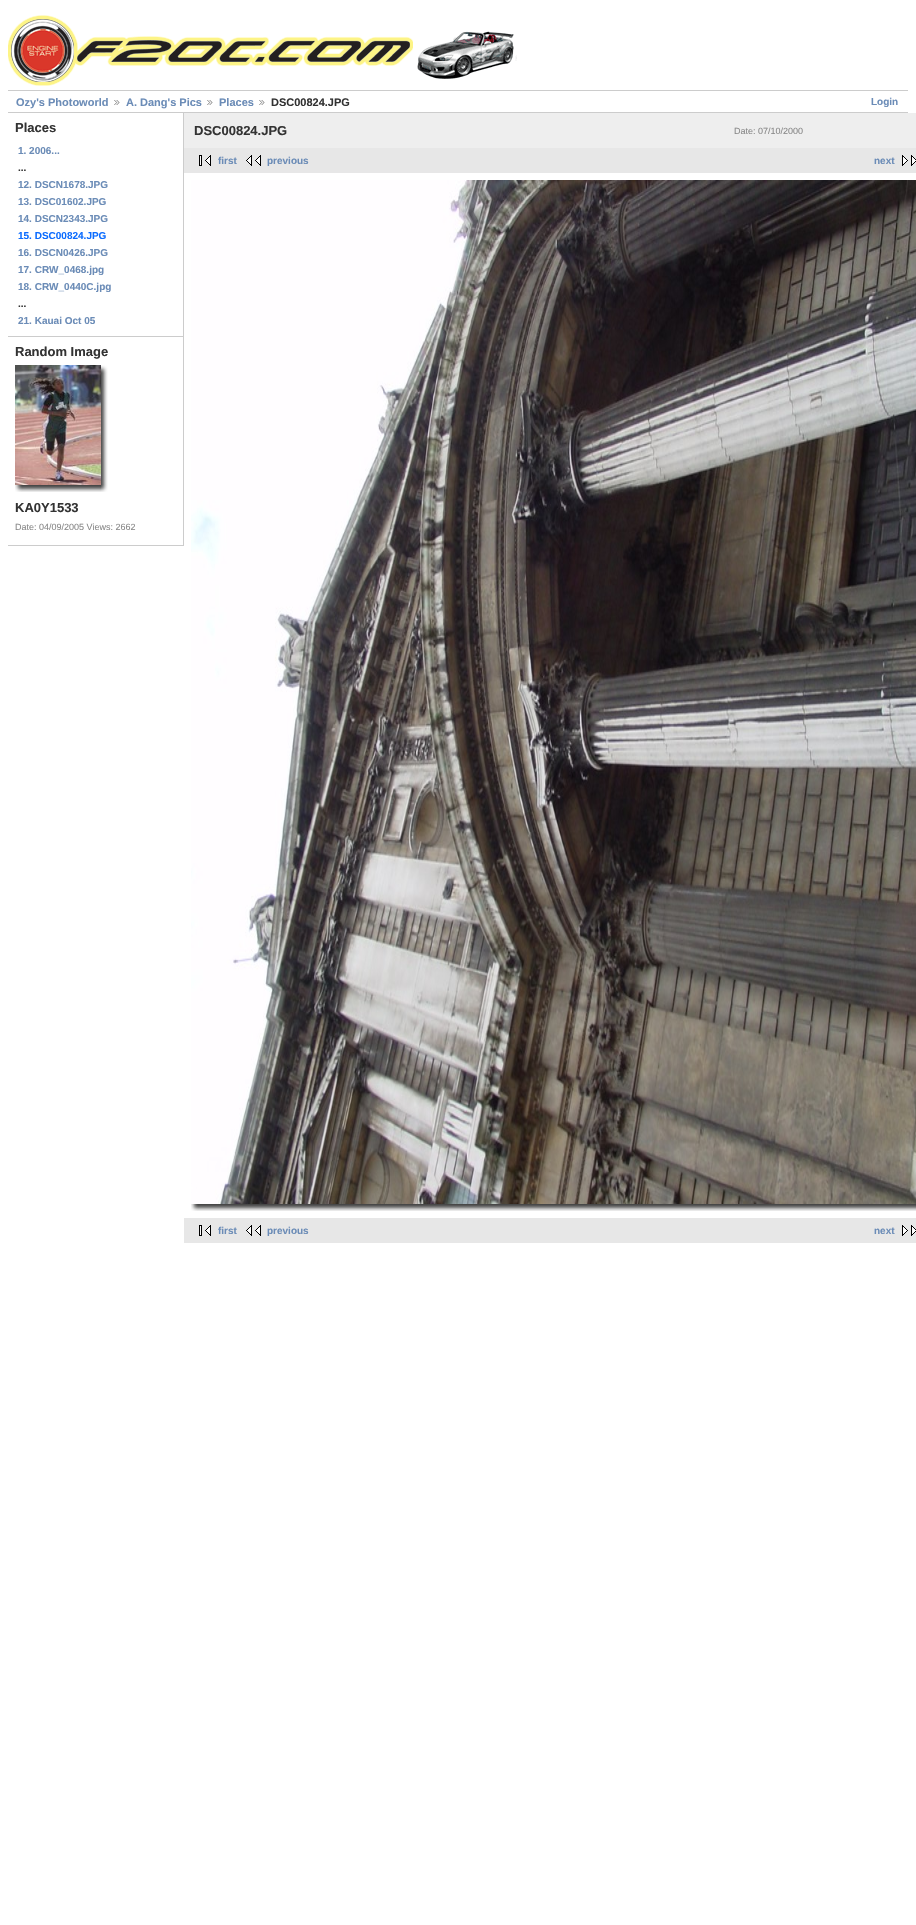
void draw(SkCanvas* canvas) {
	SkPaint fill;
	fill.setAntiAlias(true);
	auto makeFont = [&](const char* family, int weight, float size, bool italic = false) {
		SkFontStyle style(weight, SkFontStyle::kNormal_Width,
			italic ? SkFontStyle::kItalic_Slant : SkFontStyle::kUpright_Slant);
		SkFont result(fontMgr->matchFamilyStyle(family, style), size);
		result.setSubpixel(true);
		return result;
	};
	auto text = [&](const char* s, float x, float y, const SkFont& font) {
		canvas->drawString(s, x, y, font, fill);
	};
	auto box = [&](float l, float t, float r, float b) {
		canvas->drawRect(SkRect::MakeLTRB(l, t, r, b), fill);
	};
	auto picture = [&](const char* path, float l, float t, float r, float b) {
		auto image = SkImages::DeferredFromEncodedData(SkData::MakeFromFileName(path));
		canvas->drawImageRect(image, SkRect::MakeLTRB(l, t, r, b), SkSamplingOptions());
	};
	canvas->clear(0xFFFFFFFF);
	picture("image0.png", 8, 15, 413, 86);
	picture("image1.png", 417, 31, 517, 79);
	fill.setColor(0xFFCCCCCC);
	box(8, 90, 908, 91);
	box(8, 112, 908, 113);
	picture("image2.png", 114, 100, 120, 105);
	picture("image2.png", 207, 100, 213, 105);
	picture("image2.png", 259, 100, 265, 105);
	box(183, 113, 184, 546);
	box(8, 336, 183, 337);
	box(8, 545, 183, 546);
	picture("image3.png", 15, 365, 101, 485);
	picture("image4.png", 101, 365, 108, 375);
	picture("image5.png", 101, 375, 108, 485);
	picture("image6.png", 15, 485, 24, 492);
	picture("image7.png", 24, 485, 101, 492);
	picture("image8.png", 101, 485, 108, 492);
	fill.setColor(0xFFEEEEEE);
	box(184, 113, 916, 148);
	fill.setColor(0xFFE7E7E7);
	box(184, 148, 916, 173);
	picture("image9.png", 199, 155, 211, 166);
	picture("image10.png", 246, 155, 261, 166);
	picture("image11.png", 902, 155, 916, 166);
	picture("image12.png", 191, 180, 916, 1204);
	picture("image6.png", 191, 1204, 200, 1211);
	picture("image13.png", 200, 1204, 916, 1211);
	box(184, 1218, 916, 1243);
	picture("image9.png", 199, 1225, 211, 1236);
	picture("image10.png", 246, 1225, 261, 1236);
	picture("image11.png", 902, 1225, 916, 1236);
	auto font1 = makeFont("Liberation Sans", 700, 11);
	fill.setColor(0xFF6B8CB7);
	text("Ozy's Photoworld", 16, 106, font1);
	text("A. Dang's Pics", 126, 106, font1);
	text("Places", 219, 106, font1);
	fill.setColor(0xFF333333);
	text("DSC00824.JPG", 271, 106, font1);
	auto font2 = makeFont("Liberation Sans", 700, 10);
	fill.setColor(0xFF6B8CB7);
	text("Login", 871, 105, font2);
	auto font3 = makeFont("Liberation Sans", 700, 13);
	fill.setColor(0xFF333333);
	text("Places", 15, 132, font3);
	fill.setColor(0xFF6B8CB7);
	text("1. 2006...", 18, 154, font2);
	fill.setColor(0xFF333333);
	text("...", 18, 171, font2);
	fill.setColor(0xFF6B8CB7);
	text("12. DSCN1678.JPG", 18, 188, font2);
	text("13. DSC01602.JPG", 18, 205, font2);
	text("14. DSCN2343.JPG", 18, 222, font2);
	fill.setColor(0xFF0B6CFF);
	text("15. DSC00824.JPG", 18, 239, font2);
	fill.setColor(0xFF6B8CB7);
	text("16. DSCN0426.JPG", 18, 256, font2);
	text("17. CRW_0468.jpg", 18, 273, font2);
	text("18. CRW_0440C.jpg", 18, 290, font2);
	fill.setColor(0xFF333333);
	text("...", 18, 307, font2);
	fill.setColor(0xFF6B8CB7);
	text("21. Kauai Oct 05", 18, 324, font2);
	fill.setColor(0xFF333333);
	text("Random Image", 15, 356, font3);
	text("KA0Y1533", 15, 512, font3);
	auto font4 = makeFont("Liberation Sans", 400, 9);
	fill.setColor(0xFF888888);
	text("Date: 04/09/2005 Views: 2662", 15, 530, font4);
	fill.setColor(0xFF333333);
	text("DSC00824.JPG", 194, 135, font3);
	fill.setColor(0xFF888888);
	text("Date: 07/10/2000", 734, 134, font4);
	fill.setColor(0xFF6B8CB7);
	text("first", 218, 164, font2);
	text("previous", 267, 164, font2);
	text("next", 874, 164, font2);
	text("first", 218, 1234, font2);
	text("previous", 267, 1234, font2);
	text("next", 874, 1234, font2);
}
